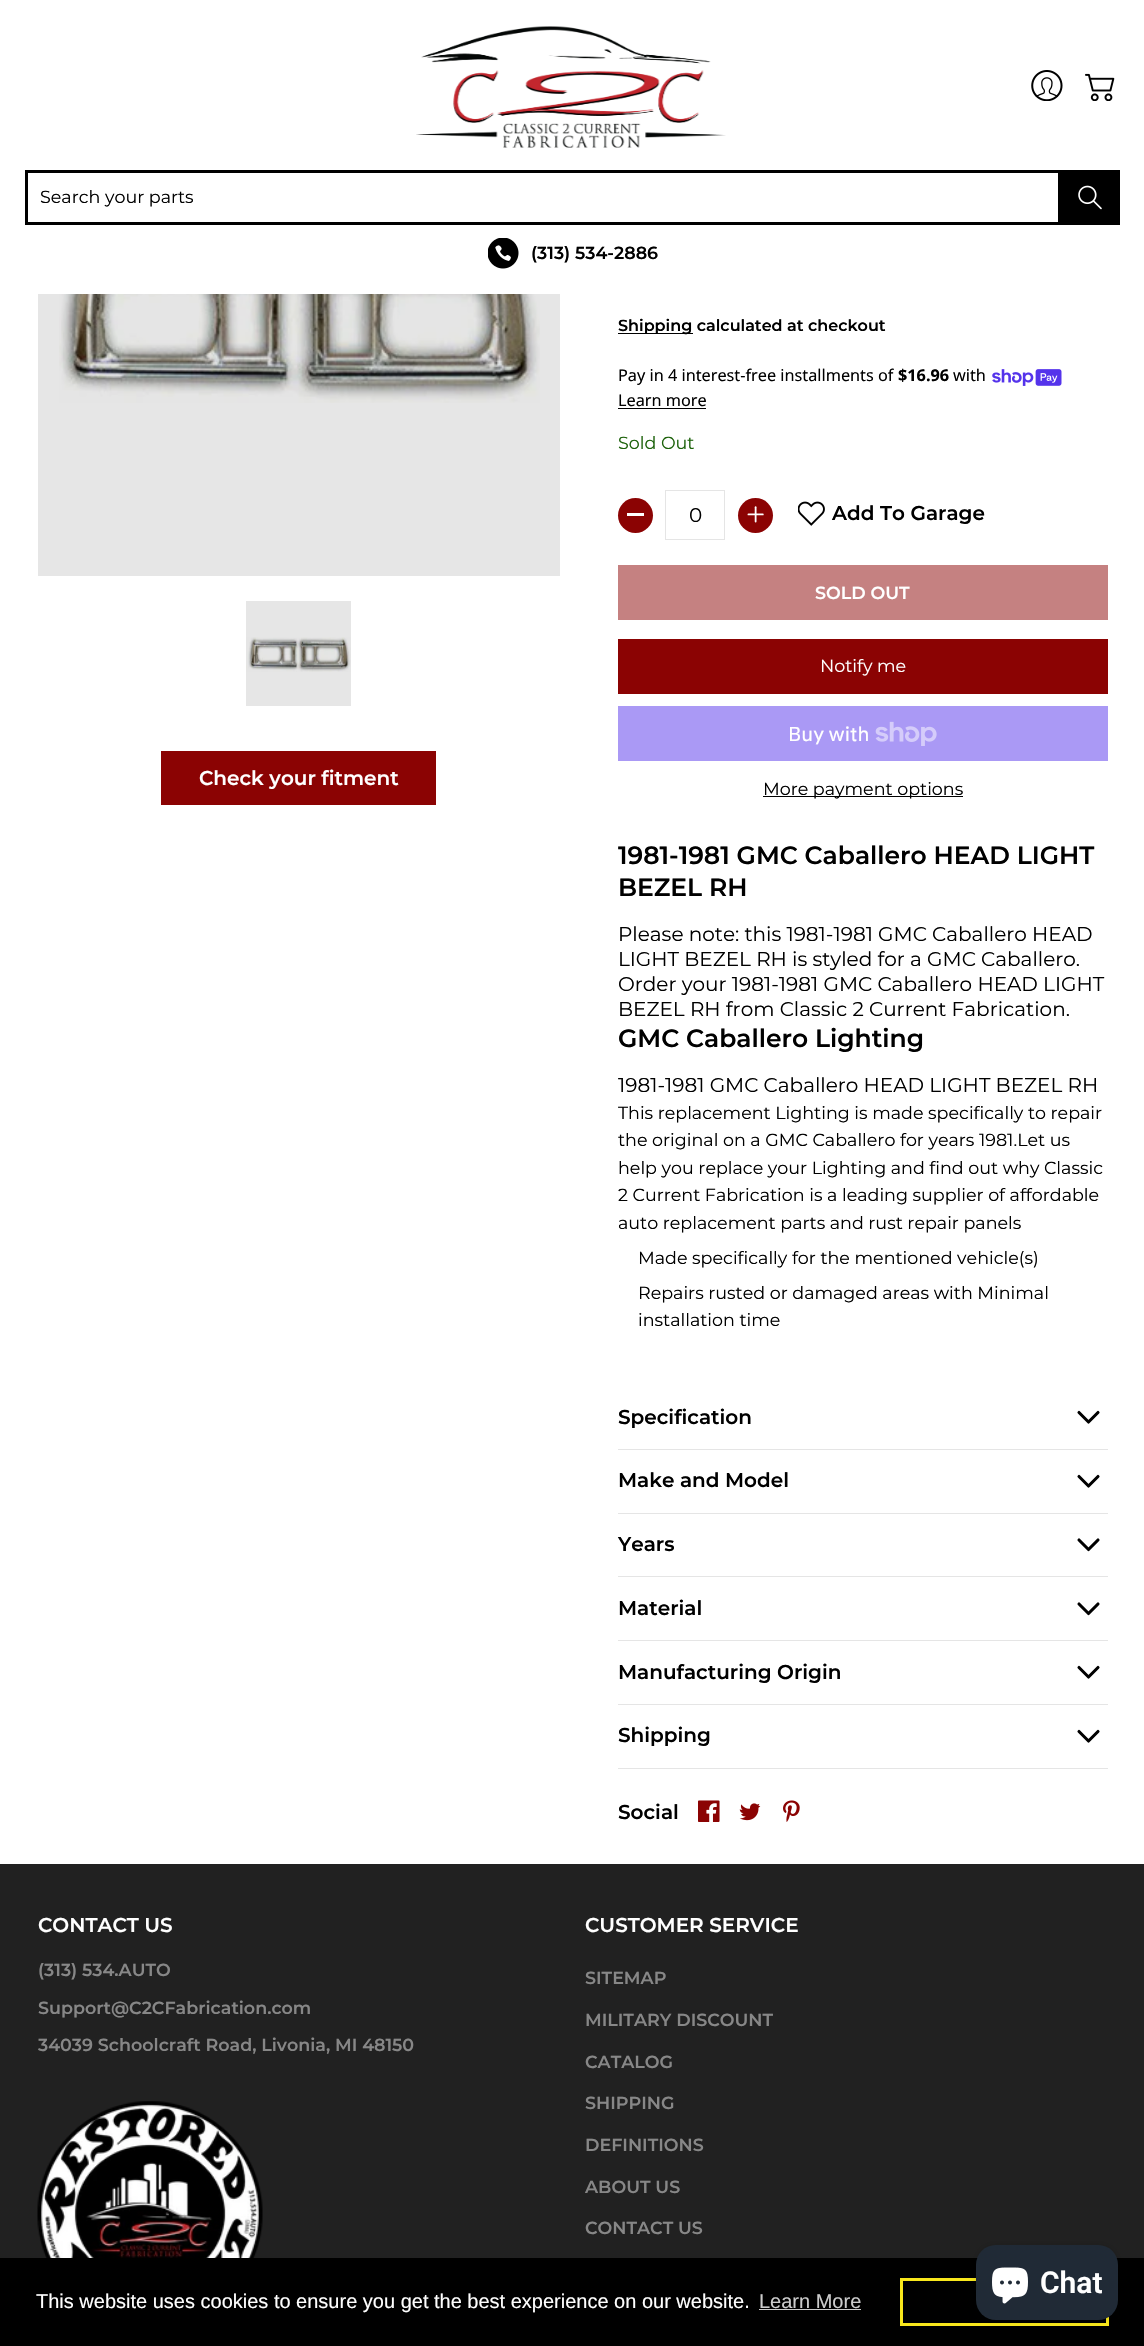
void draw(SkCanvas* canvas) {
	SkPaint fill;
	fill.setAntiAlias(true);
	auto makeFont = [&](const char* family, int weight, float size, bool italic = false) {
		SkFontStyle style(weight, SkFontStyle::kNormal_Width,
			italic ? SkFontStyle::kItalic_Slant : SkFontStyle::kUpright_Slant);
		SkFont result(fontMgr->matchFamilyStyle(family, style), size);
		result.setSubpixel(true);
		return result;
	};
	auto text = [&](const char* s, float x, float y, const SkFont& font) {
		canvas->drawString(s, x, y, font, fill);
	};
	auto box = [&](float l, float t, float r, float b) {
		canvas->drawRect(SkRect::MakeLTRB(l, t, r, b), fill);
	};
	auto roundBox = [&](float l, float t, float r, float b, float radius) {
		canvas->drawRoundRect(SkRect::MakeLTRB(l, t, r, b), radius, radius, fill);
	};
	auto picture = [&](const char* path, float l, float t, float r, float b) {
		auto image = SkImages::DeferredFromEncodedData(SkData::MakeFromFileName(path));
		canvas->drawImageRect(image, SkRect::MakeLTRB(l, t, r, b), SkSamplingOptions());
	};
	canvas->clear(0xFFFFFFFF);
	fill.setColor(0xFFE6E6E6);
	box(246, 601, 351, 706);
	box(38, 294, 560, 576);
	picture("image0.png", 416, 26, 726, 148);
	picture("image1.png", 1031, 70, 1063, 101);
	picture("image2.png", 1085, 73, 1115, 101);
	fill.setStyle(SkPaint::kStroke_Style);
	fill.setStrokeWidth(3);
	fill.setColor(0xFF000000);
	canvas->drawRect(SkRect::MakeLTRB(26.5f, 171.5f, 1059.5f, 223.5f), fill);
	fill.setStyle(SkPaint::kFill_Style);
	box(1061, 170, 1120, 225);
	picture("image3.png", 1078, 185, 1102, 210);
	picture("image4.png", 488, 238, 519, 269);
	picture("image5.png", 59, 294, 540, 403);
	picture("image6.png", 246, 637, 351, 672);
	fill.setColor(0xFF8B0303);
	box(161, 751, 436, 805);
	fill.setColor(0xFF000000);
	box(618, 333, 693, 334);
	picture("image7.png", 992, 369, 1062, 386);
	box(618, 408, 706, 409);
	fill.setColor(0xFF8B0303);
	canvas->drawCircle(635.5f, 515.5f, 17.5f, fill);
	fill.setColor(0xFFFFFFFF);
	box(627, 513, 644, 516);
	fill.setStyle(SkPaint::kStroke_Style);
	fill.setStrokeWidth(1);
	fill.setColor(0xFFE5E5E5);
	canvas->drawRect(SkRect::MakeLTRB(665.5f, 490.5f, 724.5f, 539.5f), fill);
	fill.setStyle(SkPaint::kFill_Style);
	fill.setColor(0xFF8B0303);
	canvas->drawCircle(755.5f, 515.5f, 17.5f, fill);
	picture("image8.png", 747, 506, 764, 523);
	picture("image9.png", 798, 501, 825, 526);
	fill.setColor(0xFFC58181);
	box(618, 565, 1108, 620);
	fill.setColor(0xFF8B0303);
	box(618, 639, 1108, 694);
	fill.setColor(0xFFAA99F5);
	box(618, 706, 1108, 761);
	picture("image10.png", 875, 721, 937, 746);
	fill.setColor(0xFF000000);
	box(763, 796, 963, 797);
	fill.setColor(0xFFE5E5E5);
	box(618, 1449, 1108, 1450);
	fill.setStyle(SkPaint::kStroke_Style);
	fill.setStrokeWidth(3.1f);
	fill.setStrokeCap(SkPaint::kRound_Cap);
	fill.setStrokeJoin(SkPaint::kRound_Join);
	fill.setColor(0xFF000000);
	canvas->drawPath(SkPathBuilder().moveTo(1079, 1412.5f).lineTo(1088.5f, 1422).lineTo(1098, 1412.5f).detach(), fill);
	fill.setStyle(SkPaint::kFill_Style);
	fill.setColor(0xFFE5E5E5);
	box(618, 1513, 1108, 1514);
	fill.setStyle(SkPaint::kStroke_Style);
	fill.setColor(0xFF000000);
	canvas->drawPath(SkPathBuilder().moveTo(1079, 1476.5f).lineTo(1088.5f, 1486).lineTo(1098, 1476.5f).detach(), fill);
	fill.setStyle(SkPaint::kFill_Style);
	fill.setColor(0xFFE5E5E5);
	box(618, 1576, 1108, 1577);
	fill.setStyle(SkPaint::kStroke_Style);
	fill.setColor(0xFF000000);
	canvas->drawPath(SkPathBuilder().moveTo(1079, 1540).lineTo(1088.5f, 1549.5f).lineTo(1098, 1540).detach(), fill);
	fill.setStyle(SkPaint::kFill_Style);
	fill.setColor(0xFFE5E5E5);
	box(618, 1640, 1108, 1641);
	fill.setStyle(SkPaint::kStroke_Style);
	fill.setColor(0xFF000000);
	canvas->drawPath(SkPathBuilder().moveTo(1079, 1604).lineTo(1088.5f, 1613.5f).lineTo(1098, 1604).detach(), fill);
	fill.setStyle(SkPaint::kFill_Style);
	fill.setColor(0xFFE5E5E5);
	box(618, 1704, 1108, 1705);
	fill.setStyle(SkPaint::kStroke_Style);
	fill.setColor(0xFF000000);
	canvas->drawPath(SkPathBuilder().moveTo(1079, 1667.5f).lineTo(1088.5f, 1677).lineTo(1098, 1667.5f).detach(), fill);
	fill.setStyle(SkPaint::kFill_Style);
	fill.setColor(0xFFE5E5E5);
	box(618, 1768, 1108, 1769);
	fill.setStyle(SkPaint::kStroke_Style);
	fill.setColor(0xFF000000);
	canvas->drawPath(SkPathBuilder().moveTo(1079, 1731.5f).lineTo(1088.5f, 1741).lineTo(1098, 1731.5f).detach(), fill);
	picture("image11.png", 698, 1800, 720, 1822);
	picture("image12.png", 739, 1803, 761, 1821);
	picture("image13.png", 783, 1800, 800, 1822);
	fill.setStyle(SkPaint::kFill_Style);
	fill.setColor(0xFF212121);
	box(0, 1864, 1144, 2258);
	picture("image14.png", 37, 2101, 263, 2258);
	fill.setColor(0xFF000000);
	box(0, 2258, 1144, 2346);
	fill.setStyle(SkPaint::kStroke_Style);
	fill.setStrokeWidth(3);
	fill.setStrokeCap(SkPaint::kButt_Cap);
	fill.setStrokeJoin(SkPaint::kMiter_Join);
	fill.setColor(0xFFF8E71C);
	canvas->drawRect(SkRect::MakeLTRB(901.5f, 2279.5f, 1107.5f, 2324.5f), fill);
	fill.setStyle(SkPaint::kFill_Style);
	fill.setColor(0x26000000);
	fill.setMaskFilter(SkMaskFilter::MakeBlur(kNormal_SkBlurStyle, 3));
	canvas->drawRoundRect(SkRect::MakeLTRB(976, 2245, 1118, 2320), 20, 20, fill);
	fill.setMaskFilter(nullptr);
	fill.setColor(0xFF202A36);
	roundBox(976, 2245, 1118, 2320, 20);
	picture("image15.png", 992, 2267, 1028, 2304);
	fill.setColor(0xFFCCCCCC);
	box(759, 2309, 861, 2310);
	auto font1 = makeFont("Montserrat", 400, 17.5f);
	fill.setColor(0xFF000000);
	text("Search your parts", 40, 203, font1);
	auto font2 = makeFont("Montserrat", 600, 17.5f);
	text("(313) 534-2886", 531, 259, font2);
	auto font3 = makeFont("Montserrat", 600, 20);
	fill.setColor(0xFFFFFFFF);
	text("Check your fitment", 199, 785, font3);
	auto font4 = makeFont("Montserrat", 600, 16);
	fill.setColor(0xFF000000);
	text("Shipping calculated at checkout", 618, 331, font4);
	auto font5 = makeFont("Noto Sans", 400, 16.25f);
	text("Pay in 4 interest-free installments of", 618, 381, font5);
	auto font6 = makeFont("Noto Sans", 700, 16.25f);
	text("$16.96", 898, 381, font6);
	text("with", 953, 381, font5);
	text("Learn more", 618, 406, font5);
	fill.setColor(0xFF1B6109);
	text("Sold Out", 618, 449, font1);
	auto font7 = makeFont("Montserrat", 400, 20);
	fill.setColor(0xFF000000);
	text("0", 689, 522, font7);
	text("Add To Garage", 832, 520, font3);
	fill.setColor(0xFFFFFFFF);
	text("SOLD OUT", 815, 599, font2);
	text("Notify me", 820, 672, font1);
	auto font8 = makeFont("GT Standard", 400, 20);
	text("Buy with", 788, 741, font8);
	fill.setColor(0xFF000000);
	text("More payment options", 763, 795, font1);
	auto font9 = makeFont("Montserrat", 600, 25);
	text("1981-1981 GMC Caballero HEAD LIGHT", 618, 864, font9);
	text("BEZEL RH", 618, 896, font9);
	text("Please note: this 1981-1981 GMC Caballero HEAD", 618, 941, font7);
	text("LIGHT BEZEL RH is styled for a GMC Caballero.", 618, 966, font7);
	text("Order your 1981-1981 GMC Caballero HEAD LIGHT", 618, 991, font7);
	text("BEZEL RH from Classic 2 Current Fabrication.", 618, 1016, font7);
	text("GMC Caballero Lighting", 618, 1047, font9);
	text("1981-1981 GMC Caballero HEAD LIGHT BEZEL RH", 618, 1092, font7);
	text("This replacement Lighting is made specifically to repair", 618, 1119, font1);
	text("the original on a GMC Caballero for years 1981.Let us", 618, 1146, font1);
	text("help you replace your Lighting and find out why Classic", 618, 1174, font1);
	text("2 Current Fabrication is a leading supplier of affordable", 618, 1201, font1);
	text("auto replacement parts and rust repair panels", 618, 1229, font1);
	text("‑", 618, 1264, font1);
	text("Made specifically for the mentioned vehicle(s)", 638, 1264, font1);
	text("‑", 618, 1299, font1);
	text("Repairs rusted or damaged areas with Minimal", 638, 1299, font1);
	text("installation time", 638, 1326, font1);
	text("Specification", 618, 1424, font3);
	text("Make and Model", 618, 1487, font3);
	text("Years", 618, 1551, font3);
	text("Material", 618, 1615, font3);
	text("Manufacturing Origin", 618, 1679, font3);
	text("Shipping", 618, 1742, font3);
	text("Social", 618, 1819, font3);
	fill.setColor(0xFFFFFFFF);
	text("CONTACT US", 38, 1932, font3);
	fill.setColor(0xFF878787);
	text("(313) 534.AUTO", 38, 1976, font2);
	text("Support@C2CFabrication.com", 38, 2014, font2);
	text("34039 Schoolcraft Road, Livonia, MI 48150", 38, 2051, font2);
	fill.setColor(0xFFFFFFFF);
	text("CUSTOMER SERVICE", 585, 1932, font3);
	fill.setColor(0xFF878787);
	text("SITEMAP", 585, 1984, font2);
	text("MILITARY DISCOUNT", 585, 2026, font2);
	text("CATALOG", 585, 2068, font2);
	text("SHIPPING", 585, 2109, font2);
	text("DEFINITIONS", 585, 2151, font2);
	text("ABOUT US", 585, 2193, font2);
	text("CONTACT US", 585, 2234, font2);
	auto font10 = makeFont("Roboto", 600, 30);
	fill.setColor(0xFFFFFFFF);
	text("Chat", 1040, 2293, font10);
	auto font11 = makeFont("Liberation Sans", 400, 20);
	text("This website uses cookies to ensure you get the best experience on our website.", 36, 2308, font11);
	fill.setColor(0xFFCCCCCC);
	text("Learn More", 759, 2308, font11);
}
